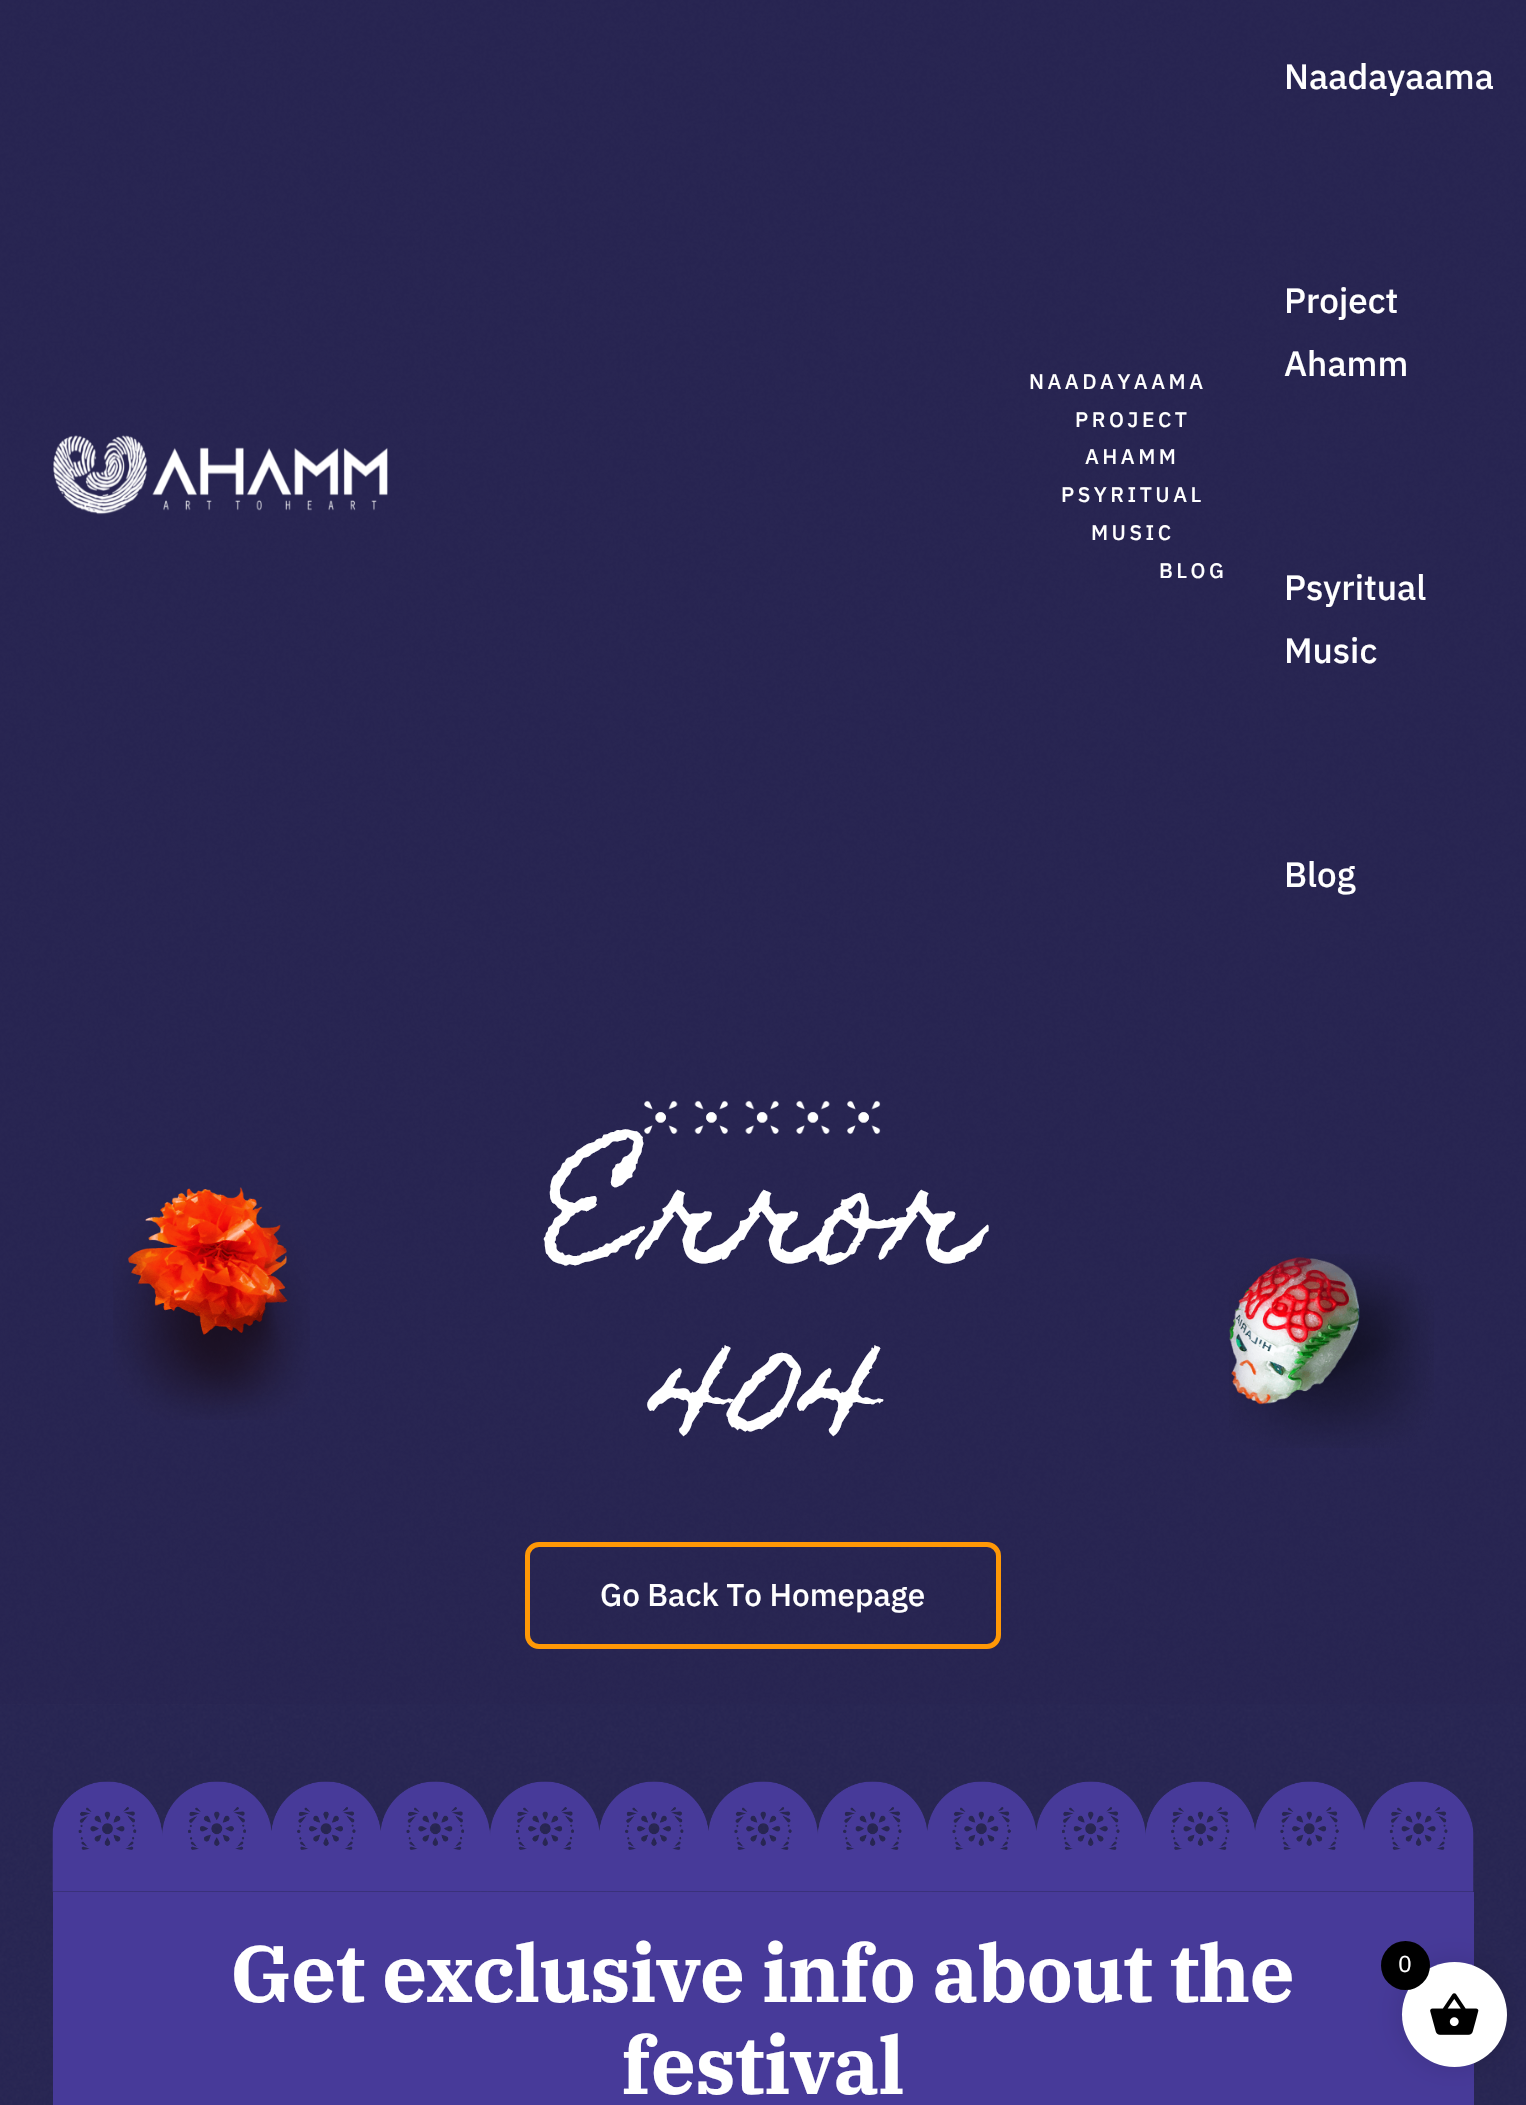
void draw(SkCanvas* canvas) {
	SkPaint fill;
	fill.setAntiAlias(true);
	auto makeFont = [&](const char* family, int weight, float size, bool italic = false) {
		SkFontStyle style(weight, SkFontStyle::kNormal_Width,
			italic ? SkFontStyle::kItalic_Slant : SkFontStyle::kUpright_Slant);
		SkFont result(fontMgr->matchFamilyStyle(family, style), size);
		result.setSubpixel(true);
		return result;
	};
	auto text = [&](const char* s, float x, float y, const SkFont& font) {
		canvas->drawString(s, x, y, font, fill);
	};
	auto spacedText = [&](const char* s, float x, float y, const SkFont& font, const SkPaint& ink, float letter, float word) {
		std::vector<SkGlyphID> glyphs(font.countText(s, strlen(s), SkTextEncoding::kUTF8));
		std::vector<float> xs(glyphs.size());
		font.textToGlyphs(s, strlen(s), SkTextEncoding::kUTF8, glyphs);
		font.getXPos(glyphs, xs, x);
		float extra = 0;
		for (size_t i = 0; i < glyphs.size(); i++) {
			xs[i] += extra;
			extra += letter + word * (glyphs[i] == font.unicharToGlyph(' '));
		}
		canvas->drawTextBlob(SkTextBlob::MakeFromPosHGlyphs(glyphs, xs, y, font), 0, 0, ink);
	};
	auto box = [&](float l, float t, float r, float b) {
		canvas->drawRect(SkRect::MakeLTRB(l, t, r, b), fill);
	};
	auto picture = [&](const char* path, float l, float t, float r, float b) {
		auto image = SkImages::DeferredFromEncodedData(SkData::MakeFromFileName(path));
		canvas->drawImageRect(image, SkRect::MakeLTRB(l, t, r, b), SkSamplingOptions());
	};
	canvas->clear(0xFF272451);
	picture("image0.png", 0, 0, 1526, 1705);
	picture("image1.png", 53, 435, 388, 515);
	picture("image5.png", 0, 1704, 1526, 2105);
	fill.setColor(0x99272451);
	box(255, 1704, 1512, 1705);
	picture("image2.png", 113, 1187, 310, 1420);
	fill.setStyle(SkPaint::kStroke_Style);
	fill.setStrokeWidth(5);
	fill.setColor(0xFFFF9806);
	canvas->drawRoundRect(SkRect::MakeLTRB(527.5f, 1544.5f, 998.5f, 1646.5f), 11.5f, 11.5f, fill);
	picture("image4.png", 1229, 1254, 1434, 1448);
	fill.setStyle(SkPaint::kFill_Style);
	fill.setColor(0x99272451);
	box(0, 1705, 1526, 2105);
	picture("image6.png", 52, 1781, 1474, 1892);
	fill.setColor(0xFF473A99);
	box(53, 1892, 1474, 2105);
	fill.setColor(0x1A000000);
	fill.setMaskFilter(SkMaskFilter::MakeBlur(kNormal_SkBlurStyle, 13));
	canvas->drawRoundRect(SkRect::MakeLTRB(1398, 1958, 1510, 2070), 56, 56, fill);
	fill.setMaskFilter(nullptr);
	fill.setColor(0xFFFFFFFF);
	canvas->drawCircle(1454.5f, 2014.5f, 52.5f, fill);
	fill.setColor(0xFF000000);
	canvas->drawCircle(1405.5f, 1965.5f, 24.5f, fill);
	picture("image7.png", 1430, 1993, 1479, 2035);
	auto font1 = makeFont("IBM Plex Sans", 500, 21);
	fill.setColor(0xFFFFFFFF);
	spacedText("NAADAYAAMA", 1029, 389, font1, fill, 3.5f, 0);
	spacedText("PROJECT", 1075, 427, font1, fill, 3.5f, 0);
	spacedText("AHAMM", 1085, 464, font1, fill, 3.5f, 0);
	spacedText("PSYRITUAL", 1061, 502, font1, fill, 3.5f, 0);
	spacedText("MUSIC", 1091, 540, font1, fill, 3.5f, 0);
	spacedText("BLOG", 1159, 578, font1, fill, 3.5f, 0);
	auto font2 = makeFont("IBM Plex Sans", 500, 35);
	text("Naadayaama", 1284, 89, font2);
	text("Project", 1284, 313, font2);
	text("Ahamm", 1284, 376, font2);
	text("Psyritual", 1284, 600, font2);
	text("Music", 1284, 663, font2);
	text("Blog", 1284, 887, font2);
	auto font3 = makeFont("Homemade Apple", 400, 140);
	spacedText("Error", 548, 1258, font3, fill, -4.25f, 0);
	picture("image3.png", 644, 1100, 881, 1134);
	spacedText("404", 648, 1444, font3, fill, -4.25f, 0);
	auto font4 = makeFont("IBM Plex Sans", 500, 31.5f);
	text("Go Back To Homepage", 600, 1606, font4);
	auto font5 = makeFont("IBM Plex Serif", 700, 80);
	spacedText("Get exclusive info about the", 230, 2002, font5, fill, -0.95f, 0);
	spacedText("festival", 621, 2094, font5, fill, -0.95f, 0);
	auto font6 = makeFont("IBM Plex Sans", 400, 23);
	text("0", 1398, 1972, font6);
}
